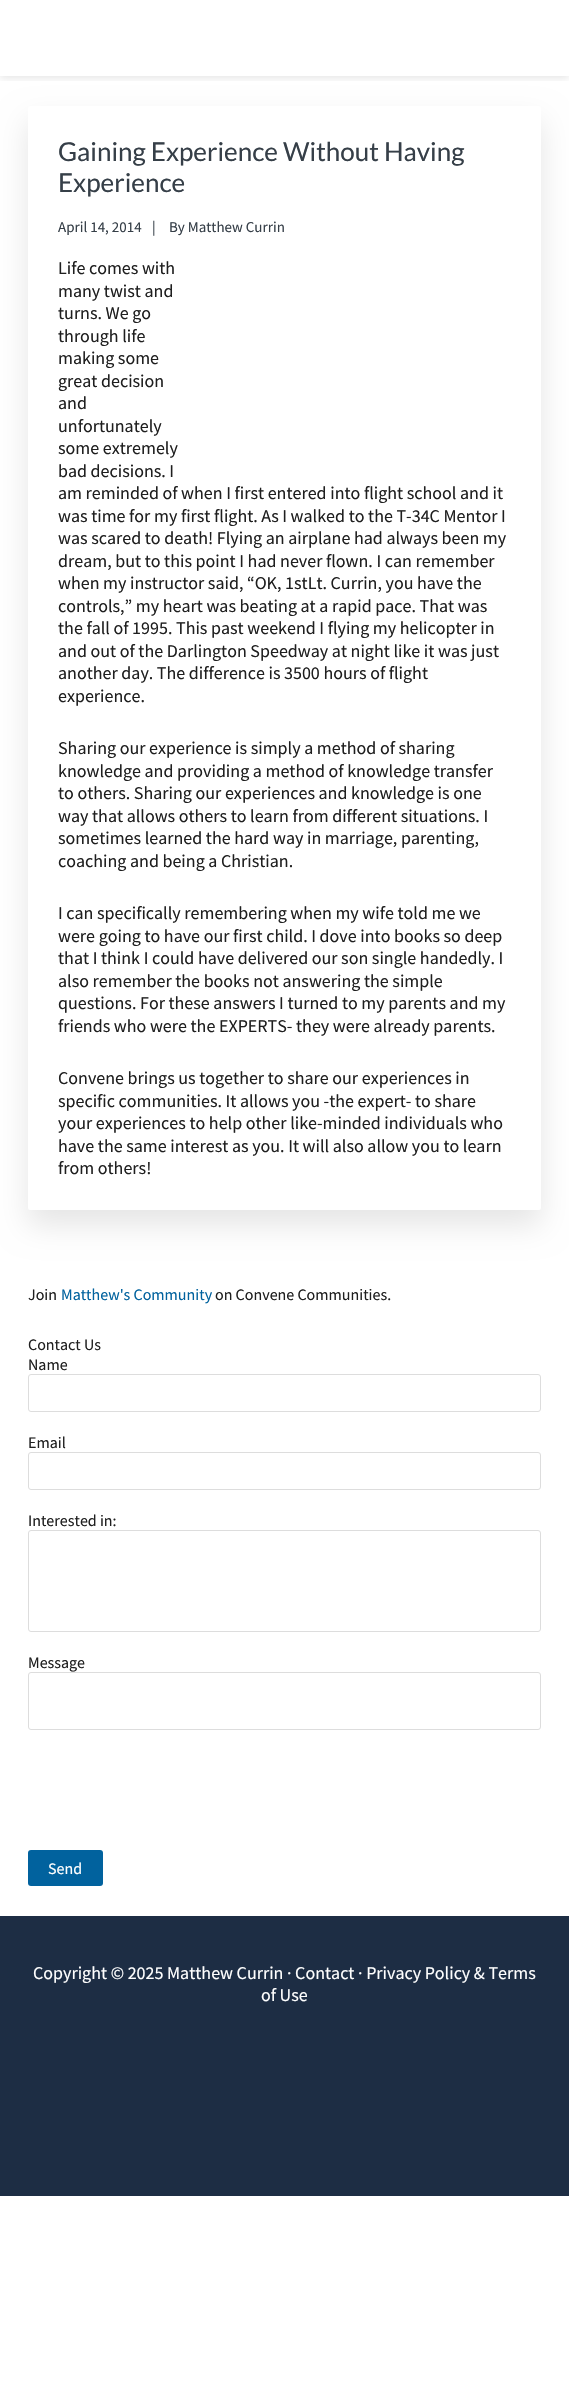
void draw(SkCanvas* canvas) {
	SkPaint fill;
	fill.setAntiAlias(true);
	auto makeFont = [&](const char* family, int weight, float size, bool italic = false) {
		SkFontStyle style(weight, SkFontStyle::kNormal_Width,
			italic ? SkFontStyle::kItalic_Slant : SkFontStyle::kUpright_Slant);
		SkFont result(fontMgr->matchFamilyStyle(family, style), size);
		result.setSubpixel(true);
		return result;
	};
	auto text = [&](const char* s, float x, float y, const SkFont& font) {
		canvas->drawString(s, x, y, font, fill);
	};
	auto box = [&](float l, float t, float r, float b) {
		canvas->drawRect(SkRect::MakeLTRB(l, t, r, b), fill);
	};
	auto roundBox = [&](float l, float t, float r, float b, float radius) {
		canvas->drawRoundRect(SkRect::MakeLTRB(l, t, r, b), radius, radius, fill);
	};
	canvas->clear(0xFFFFFFFF);
	canvas->save();
	canvas->clipRect(SkRect::MakeLTRB(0, 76, 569, 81));
	fill.setColor(0x1A000000);
	fill.setMaskFilter(SkMaskFilter::MakeBlur(kNormal_SkBlurStyle, 4));
	canvas->drawRect(SkRect::MakeLTRB(0, 2, 569, 78), fill);
	fill.setMaskFilter(nullptr);
	canvas->restore();
	fill.setMaskFilter(SkMaskFilter::MakeBlur(kNormal_SkBlurStyle, 15));
	canvas->drawRoundRect(SkRect::MakeLTRB(28, 121, 541, 1225), 2, 2, fill);
	fill.setMaskFilter(nullptr);
	fill.setColor(0xFFFFFFFF);
	roundBox(28, 106, 541, 1210, 2);
	fill.setStyle(SkPaint::kStroke_Style);
	fill.setStrokeWidth(1);
	fill.setColor(0xFFDDDDDD);
	canvas->drawRoundRect(SkRect::MakeLTRB(28.5f, 1374.5f, 540.5f, 1411.5f), 2.5f, 2.5f, fill);
	canvas->drawRoundRect(SkRect::MakeLTRB(28.5f, 1452.5f, 540.5f, 1489.5f), 2.5f, 2.5f, fill);
	canvas->drawRoundRect(SkRect::MakeLTRB(28.5f, 1530.5f, 540.5f, 1631.5f), 2.5f, 2.5f, fill);
	canvas->drawRoundRect(SkRect::MakeLTRB(28.5f, 1672.5f, 540.5f, 1729.5f), 2.5f, 2.5f, fill);
	fill.setStyle(SkPaint::kFill_Style);
	fill.setColor(0xFF01629E);
	roundBox(28, 1850, 103, 1886, 3);
	fill.setColor(0xFF1D2D44);
	box(0, 1916, 569, 2196);
	auto font1 = makeFont("Lato", 400, 26);
	fill.setColor(0xFF363F48);
	text("Gaining Experience Without Having", 58, 161, font1);
	text("Experience", 58, 192, font1);
	auto font2 = makeFont("Source Sans Pro", 400, 15);
	text("April 14, 2014", 58, 232, font2);
	text("|", 152, 232, font2);
	text("By Matthew Currin", 169, 232, font2);
	auto font3 = makeFont("Source Sans Pro", 400, 18);
	fill.setColor(0xFF1F1F1F);
	text("Life comes with", 58, 274, font3);
	text("many twist and", 58, 297, font3);
	text("turns. We go", 58, 319, font3);
	text("through life", 58, 342, font3);
	text("making some", 58, 364, font3);
	text("great decision", 58, 387, font3);
	text("and", 58, 409, font3);
	text("unfortunately", 58, 432, font3);
	text("some extremely", 58, 454, font3);
	text("bad decisions. I", 58, 477, font3);
	text("am reminded of when I first entered into flight school and it", 58, 499, font3);
	text("was time for my first flight. As I walked to the T-34C Mentor I", 58, 522, font3);
	text("was scared to death! Flying an airplane had always been my", 58, 544, font3);
	text("dream, but to this point I had never flown. I can remember", 58, 567, font3);
	text("when my instructor said, “OK, 1stLt. Currin, you have the", 58, 589, font3);
	text("controls,” my heart was beating at a rapid pace. That was", 58, 612, font3);
	text("the fall of 1995. This past weekend I flying my helicopter in", 58, 634, font3);
	text("and out of the Darlington Speedway at night like it was just", 58, 657, font3);
	text("another day. The difference is 3500 hours of flight", 58, 679, font3);
	text("experience.", 58, 702, font3);
	text("Sharing our experience is simply a method of sharing", 58, 754, font3);
	text("knowledge and providing a method of knowledge transfer", 58, 777, font3);
	text("to others. Sharing our experiences and knowledge is one", 58, 799, font3);
	text("way that allows others to learn from different situations. I", 58, 822, font3);
	text("sometimes learned the hard way in marriage, parenting,", 58, 844, font3);
	text("coaching and being a Christian.", 58, 867, font3);
	text("I can specifically remembering when my wife told me we", 58, 919, font3);
	text("were going to have our first child. I dove into books so deep", 58, 942, font3);
	text("that I think I could have delivered our son single handedly. I", 58, 964, font3);
	text("also remember the books not answering the simple", 58, 987, font3);
	text("questions. For these answers I turned to my parents and my", 58, 1009, font3);
	text("friends who were the EXPERTS- they were already parents.", 58, 1032, font3);
	text("Convene brings us together to share our experiences in", 58, 1084, font3);
	text("specific communities. It allows you -the expert- to share", 58, 1107, font3);
	text("your experiences to help other like-minded individuals who", 58, 1129, font3);
	text("have the same interest as you. It will also allow you to learn", 58, 1152, font3);
	text("from others!", 58, 1174, font3);
	auto font4 = makeFont("Source Sans Pro", 400, 16);
	text("Join", 28, 1300, font4);
	fill.setColor(0xFF01629E);
	text("Matthew's Community", 61, 1300, font4);
	fill.setColor(0xFF1F1F1F);
	text("on Convene Communities.", 215, 1300, font4);
	text("Contact Us", 28, 1350, font4);
	text("Name", 28, 1370, font4);
	text("Email", 28, 1448, font4);
	text("Interested in:", 28, 1526, font4);
	text("Message", 28, 1668, font4);
	fill.setColor(0xFFFFFFFF);
	text("Send", 48, 1874, font4);
	text("Copyright © 2025 Matthew Currin · Contact · Privacy Policy & Terms", 33, 1979, font3);
	text("of Use", 261, 2001, font3);
}
